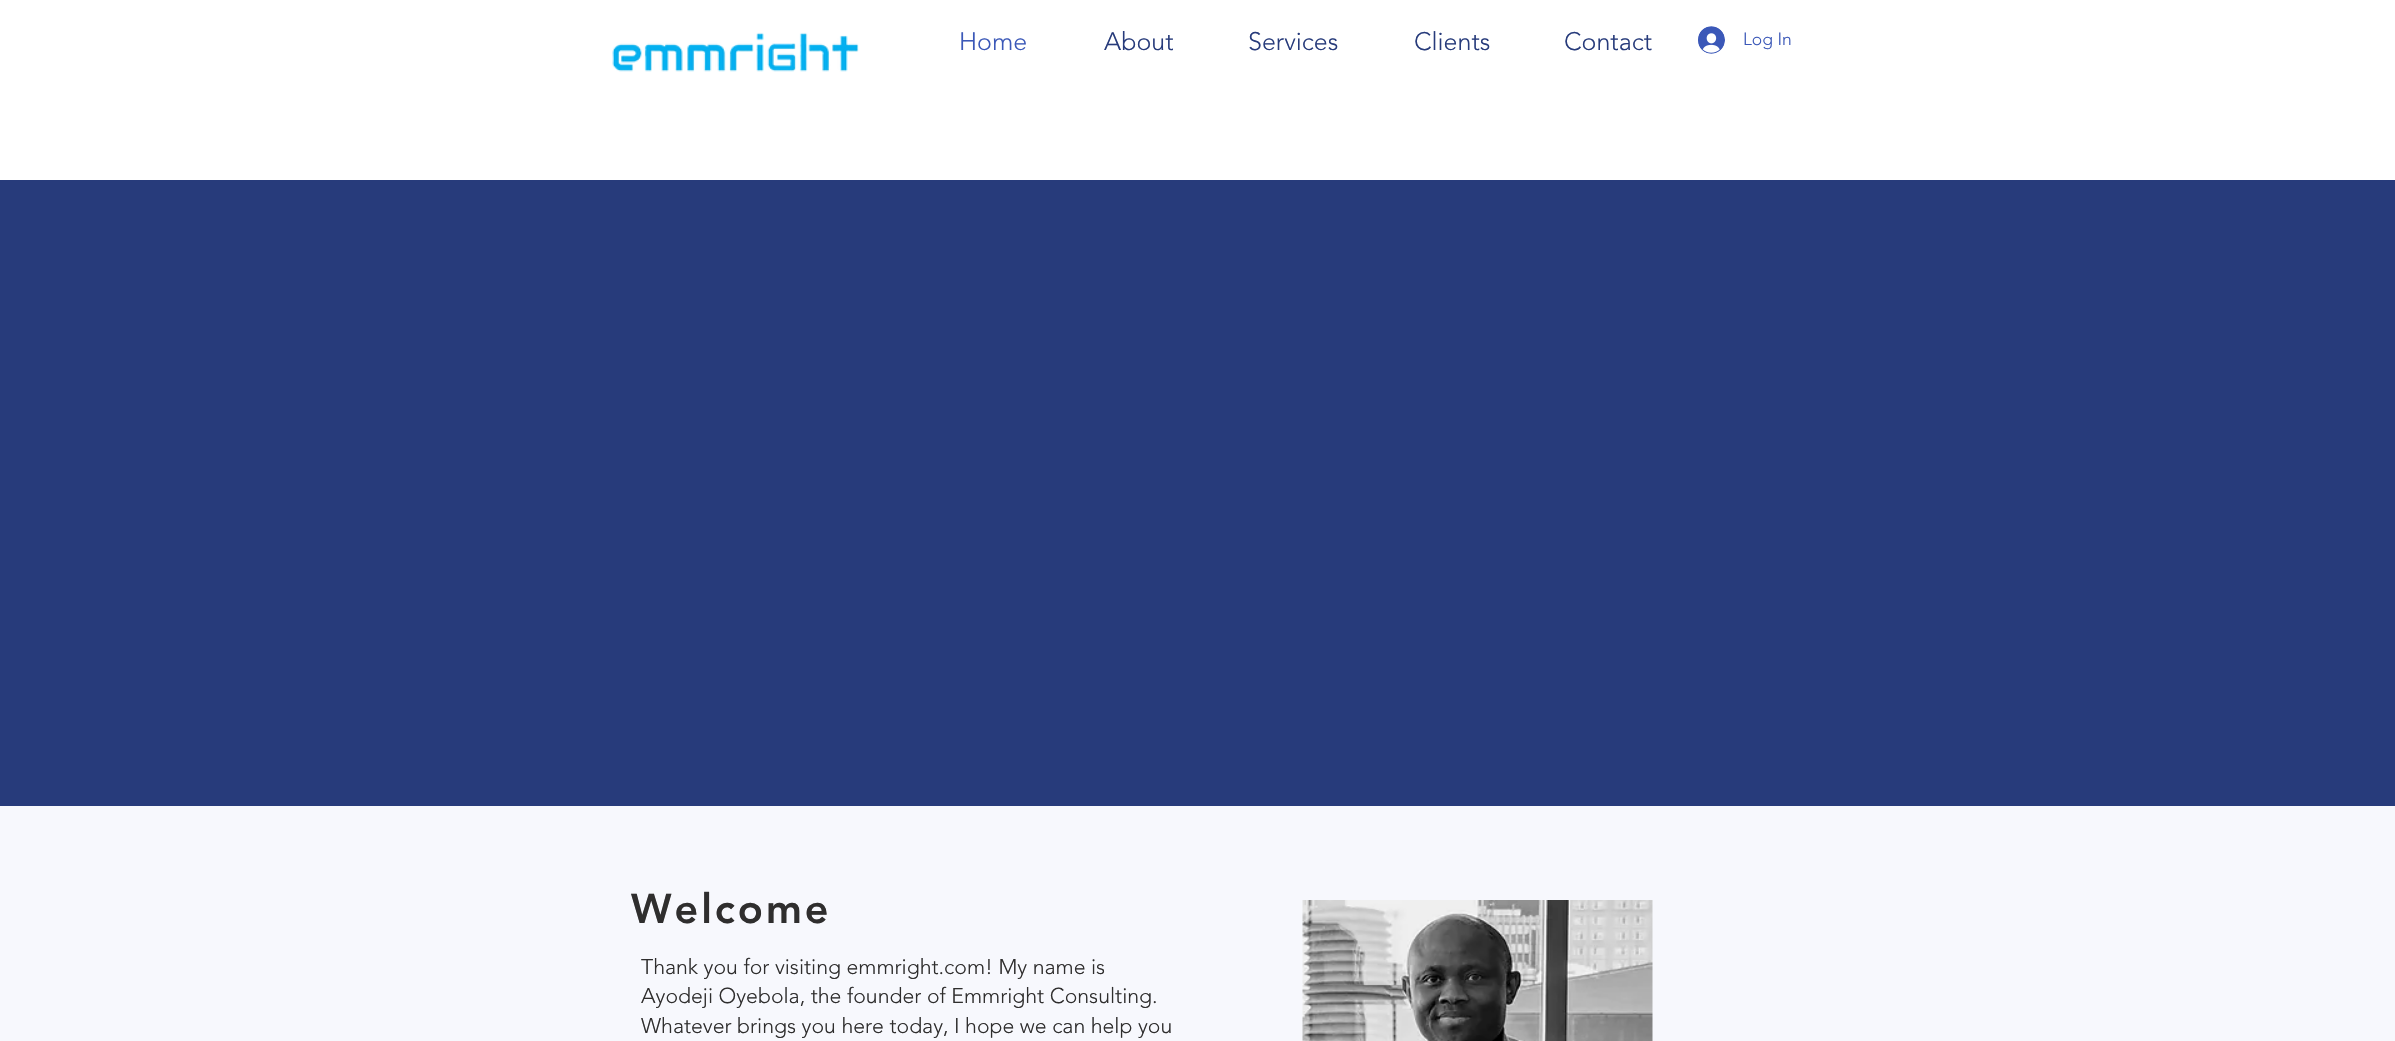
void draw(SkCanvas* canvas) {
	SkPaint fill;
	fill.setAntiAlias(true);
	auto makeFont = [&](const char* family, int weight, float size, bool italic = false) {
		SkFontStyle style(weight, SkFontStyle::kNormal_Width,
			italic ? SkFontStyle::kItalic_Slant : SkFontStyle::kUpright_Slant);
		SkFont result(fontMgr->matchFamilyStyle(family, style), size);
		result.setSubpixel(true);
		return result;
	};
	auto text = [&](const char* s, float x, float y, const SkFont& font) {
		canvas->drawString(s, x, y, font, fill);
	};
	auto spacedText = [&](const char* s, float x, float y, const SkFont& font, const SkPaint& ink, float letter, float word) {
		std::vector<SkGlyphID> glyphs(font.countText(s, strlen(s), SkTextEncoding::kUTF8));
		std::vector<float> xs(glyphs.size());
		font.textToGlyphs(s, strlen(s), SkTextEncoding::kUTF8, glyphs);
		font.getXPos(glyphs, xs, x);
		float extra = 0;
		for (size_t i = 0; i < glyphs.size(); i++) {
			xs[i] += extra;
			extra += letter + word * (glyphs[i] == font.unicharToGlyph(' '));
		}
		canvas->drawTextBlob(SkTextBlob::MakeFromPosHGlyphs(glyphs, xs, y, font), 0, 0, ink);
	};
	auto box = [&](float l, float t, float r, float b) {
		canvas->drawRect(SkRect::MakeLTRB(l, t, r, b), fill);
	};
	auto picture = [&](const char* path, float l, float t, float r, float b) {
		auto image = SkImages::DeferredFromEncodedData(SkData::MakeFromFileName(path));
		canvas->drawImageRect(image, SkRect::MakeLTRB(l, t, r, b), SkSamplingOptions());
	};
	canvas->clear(0xFFFFFFFF);
	picture("image0.png", 612, 32, 859, 72);
	picture("image1.png", 1698, 26, 1725, 54);
	fill.setColor(0xFF273B7B);
	box(0, 180, 2395, 806);
	fill.setColor(0xFFF7F8FD);
	box(0, 806, 2395, 1041);
	picture("image2.png", 1302, 900, 1653, 1041);
	auto font1 = makeFont("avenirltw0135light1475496", 300, 25);
	fill.setColor(0xFF3B58B8);
	text("Home", 959, 50, font1);
	fill.setColor(0xFF273B7B);
	text("About", 1104, 50, font1);
	text("Services", 1248, 50, font1);
	text("Clients", 1414, 50, font1);
	text("Contact", 1564, 50, font1);
	auto font2 = makeFont("avenirltw0135light1475496", 300, 17.5f);
	fill.setColor(0xFF3B58B8);
	text("Log In", 1743, 45, font2);
	auto font3 = makeFont("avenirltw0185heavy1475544", 900, 41.25f);
	fill.setColor(0xFF2F2E2E);
	spacedText("Welcome", 631, 923, font3, fill, 3, 0);
	auto font4 = makeFont("avenirltw0135light1475496", 300, 21.25f);
	text("Thank you for visiting emmright.com! My name is", 641, 974, font4);
	text("Ayodeji Oyebola, the founder of Emmright Consulting.", 641, 1003, font4);
	text("Whatever brings you here today, I hope we can help you", 641, 1033, font4);
}
